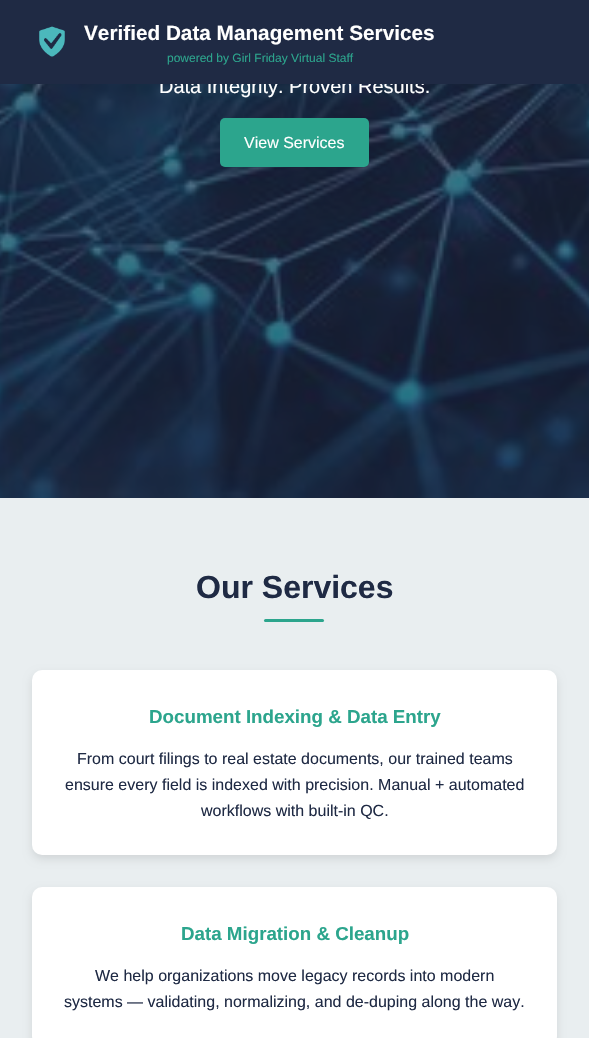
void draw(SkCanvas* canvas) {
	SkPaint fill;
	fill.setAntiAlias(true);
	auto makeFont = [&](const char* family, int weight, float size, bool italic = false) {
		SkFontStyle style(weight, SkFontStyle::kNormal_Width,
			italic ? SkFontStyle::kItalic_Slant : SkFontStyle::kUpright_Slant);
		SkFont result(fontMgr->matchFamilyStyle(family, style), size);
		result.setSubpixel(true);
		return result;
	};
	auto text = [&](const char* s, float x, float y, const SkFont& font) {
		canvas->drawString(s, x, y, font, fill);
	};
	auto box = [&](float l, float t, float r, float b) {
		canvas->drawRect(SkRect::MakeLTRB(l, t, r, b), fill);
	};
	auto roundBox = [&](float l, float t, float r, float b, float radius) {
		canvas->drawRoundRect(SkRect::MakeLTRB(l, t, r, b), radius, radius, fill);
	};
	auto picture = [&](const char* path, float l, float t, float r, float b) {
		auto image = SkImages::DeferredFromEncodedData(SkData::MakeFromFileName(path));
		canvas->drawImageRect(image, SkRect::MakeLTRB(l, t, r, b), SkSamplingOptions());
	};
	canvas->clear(0xFFE9EEF0);
	picture("image1.png", 0, 84, 589, 498);
	fill.setColor(0xFF2CA58D);
	roundBox(220, 118, 369, 167, 5);
	roundBox(264, 619, 324, 622, 1.5f);
	fill.setColor(0x1A000000);
	fill.setMaskFilter(SkMaskFilter::MakeBlur(kNormal_SkBlurStyle, 4));
	canvas->drawRoundRect(SkRect::MakeLTRB(32, 674, 557, 859), 10, 10, fill);
	fill.setMaskFilter(nullptr);
	fill.setColor(0xFFFFFFFF);
	roundBox(32, 670, 557, 855, 10);
	fill.setColor(0x1A000000);
	fill.setMaskFilter(SkMaskFilter::MakeBlur(kNormal_SkBlurStyle, 4));
	canvas->drawRoundRect(SkRect::MakeLTRB(32, 891, 557, 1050), 10, 10, fill);
	fill.setMaskFilter(nullptr);
	fill.setColor(0xFFFFFFFF);
	roundBox(32, 887, 557, 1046, 10);
	auto font1 = makeFont("Liberation Sans", 400, 20);
	text("Data Integrity. Proven Results.", 159, 93, font1);
	fill.setColor(0xFF1F2A44);
	box(0, 0, 589, 84);
	auto font2 = makeFont("Liberation Sans", 400, 12);
	fill.setColor(0xFF2CA58D);
	text("powered by Girl Friday Virtual Staff", 167, 62, font2);
	auto font3 = makeFont("Liberation Sans", 700, 20.75f);
	fill.setColor(0xFFFFFFFF);
	text("Verified Data Management Services", 84, 40, font3);
	picture("image0.png", 39, 26, 65, 57);
	auto font4 = makeFont("Liberation Sans", 400, 16);
	text("View Services", 244, 148, font4);
	auto font5 = makeFont("Liberation Sans", 700, 32);
	fill.setColor(0xFF1F2A44);
	text("Our Services", 196, 598, font5);
	auto font6 = makeFont("Liberation Sans", 700, 18.75f);
	fill.setColor(0xFF2CA58D);
	text("Document Indexing & Data Entry", 149, 723, font6);
	fill.setColor(0xFF1F2A44);
	text("From court filings to real estate documents, our trained teams", 77, 764, font4);
	text("ensure every field is indexed with precision. Manual + automated", 65, 790, font4);
	text("workflows with built-in QC.", 201, 816, font4);
	fill.setColor(0xFF2CA58D);
	text("Data Migration & Cleanup", 181, 940, font6);
	fill.setColor(0xFF1F2A44);
	text("We help organizations move legacy records into modern", 95, 981, font4);
	text("systems — validating, normalizing, and de-duping along the way.", 64, 1007, font4);
}
